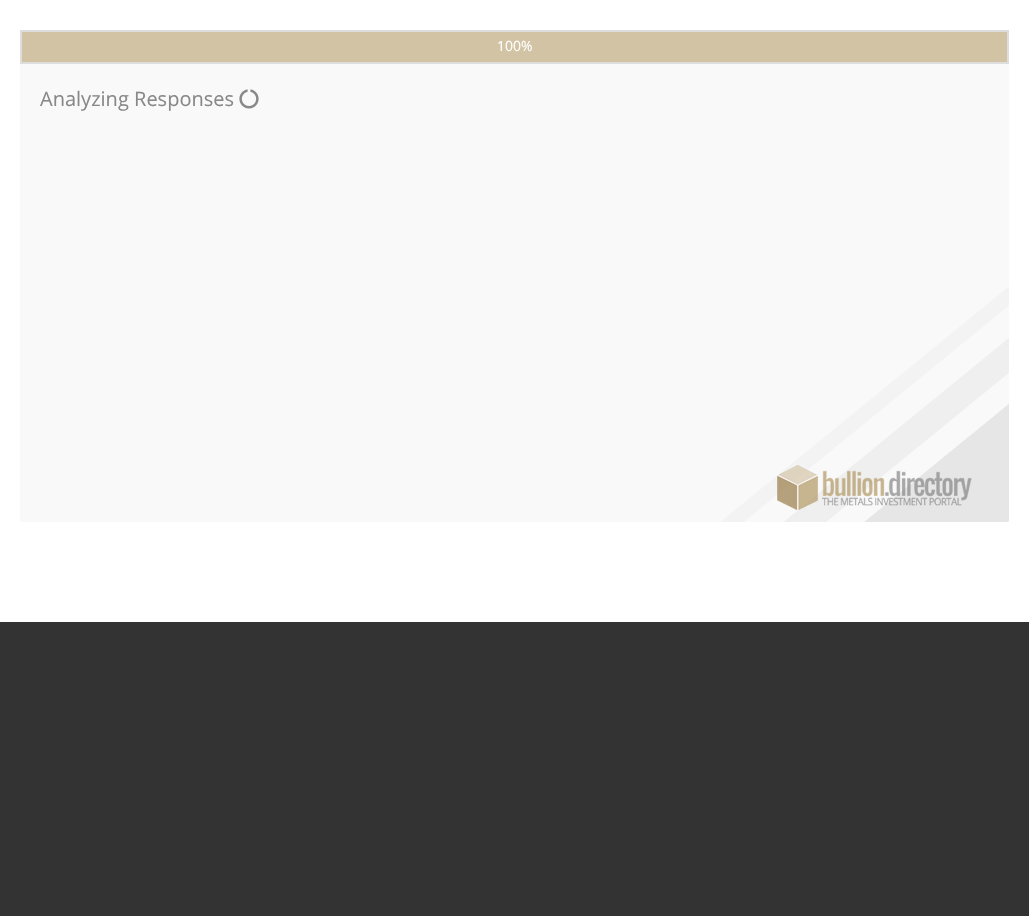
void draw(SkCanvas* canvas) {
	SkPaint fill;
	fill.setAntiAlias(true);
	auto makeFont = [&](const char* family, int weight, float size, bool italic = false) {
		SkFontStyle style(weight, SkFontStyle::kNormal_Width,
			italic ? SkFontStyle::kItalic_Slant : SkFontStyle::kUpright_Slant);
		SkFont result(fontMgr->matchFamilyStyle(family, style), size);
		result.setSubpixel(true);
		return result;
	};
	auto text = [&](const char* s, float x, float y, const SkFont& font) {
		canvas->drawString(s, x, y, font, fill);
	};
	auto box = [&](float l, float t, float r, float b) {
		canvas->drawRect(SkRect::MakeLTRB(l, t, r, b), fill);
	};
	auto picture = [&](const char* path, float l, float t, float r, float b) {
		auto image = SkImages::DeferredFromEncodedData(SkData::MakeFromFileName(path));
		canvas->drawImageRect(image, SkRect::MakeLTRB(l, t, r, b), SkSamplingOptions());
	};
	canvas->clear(0xFF333333);
	fill.setColor(0xFFFFFFFF);
	box(0, 0, 1029, 622);
	fill.setColor(0xFFD2C3A4);
	box(22, 32, 1007, 62);
	fill.setStyle(SkPaint::kStroke_Style);
	fill.setStrokeWidth(2);
	fill.setColor(0xFFDDDDDD);
	canvas->drawRect(SkRect::MakeLTRB(21, 31, 1008, 63), fill);
	fill.setStyle(SkPaint::kFill_Style);
	fill.setColor(0xFFF9F9F9);
	box(20, 64, 1009, 522);
	picture("image0.png", 721, 287, 1009, 522);
	picture("image1.png", 239, 89, 259, 109);
	auto font1 = makeFont("Open Sans", 400, 14);
	fill.setColor(0xFFFFFFFF);
	text("100%", 497, 51, font1);
	auto font2 = makeFont("Open Sans", 400, 20);
	fill.setColor(0xFF888888);
	text("Analyzing Responses", 40, 106, font2);
}
